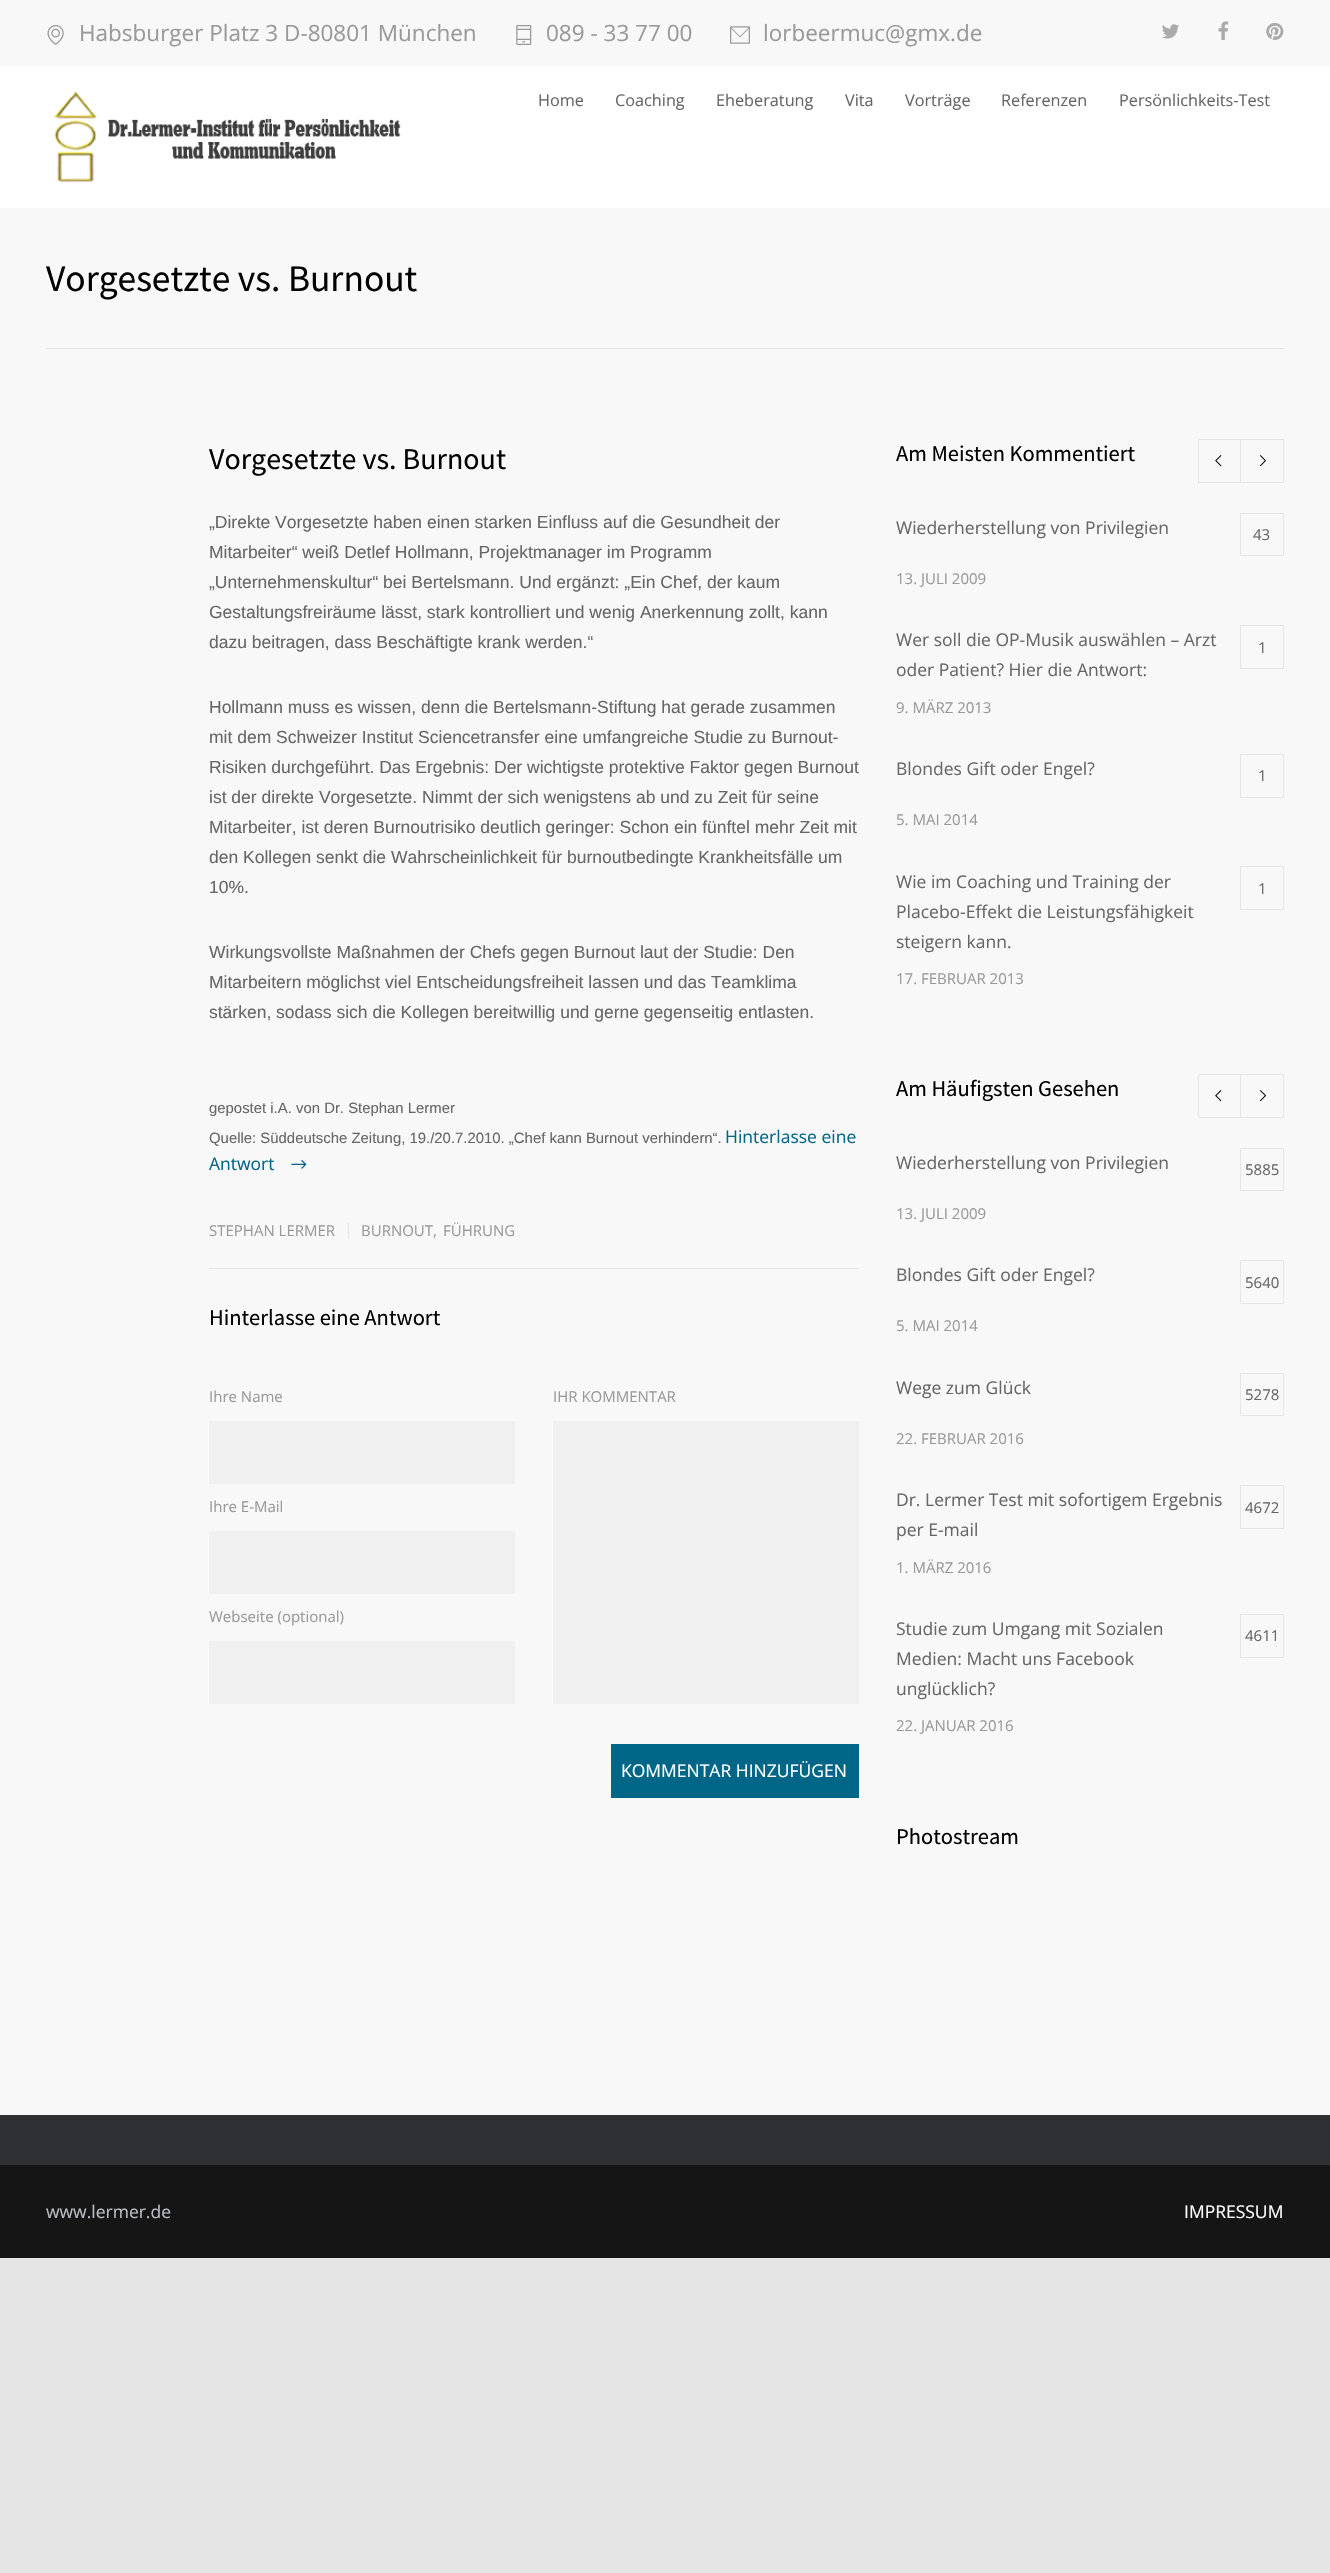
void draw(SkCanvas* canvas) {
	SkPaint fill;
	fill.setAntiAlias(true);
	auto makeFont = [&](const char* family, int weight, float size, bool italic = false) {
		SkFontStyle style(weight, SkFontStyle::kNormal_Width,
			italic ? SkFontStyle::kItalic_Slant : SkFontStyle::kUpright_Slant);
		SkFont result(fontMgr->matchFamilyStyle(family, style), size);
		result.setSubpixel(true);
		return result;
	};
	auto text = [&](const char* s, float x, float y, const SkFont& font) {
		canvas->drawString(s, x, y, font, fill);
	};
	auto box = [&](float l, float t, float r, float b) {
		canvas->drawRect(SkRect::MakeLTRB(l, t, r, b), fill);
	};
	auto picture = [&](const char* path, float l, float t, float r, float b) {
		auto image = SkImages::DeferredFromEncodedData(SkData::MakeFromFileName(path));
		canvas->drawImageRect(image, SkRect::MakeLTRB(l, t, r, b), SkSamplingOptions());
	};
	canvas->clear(0xFFE5E5E5);
	fill.setColor(0xFFF8F8F8);
	box(0, 0, 1330, 2115);
	picture("image0.png", 47, 25, 64, 45);
	picture("image1.png", 516, 25, 532, 45);
	picture("image2.png", 730, 26, 750, 44);
	picture("image3.png", 1162, 24, 1179, 39);
	picture("image4.png", 1218, 21, 1229, 40);
	picture("image5.png", 1266, 22, 1284, 40);
	fill.setColor(0xFFFFFFFF);
	box(0, 66, 1330, 208);
	picture("image6.png", 53, 91, 401, 183);
	fill.setColor(0xFFE5E5E5);
	box(46, 348, 1284, 349);
	box(209, 1268, 859, 1269);
	picture("image7.png", 291, 1160, 307, 1169);
	box(348, 1223, 349, 1239);
	fill.setColor(0xFFF0F0F0);
	box(209, 1421, 515, 1484);
	box(209, 1531, 515, 1594);
	box(209, 1641, 515, 1704);
	box(553, 1421, 859, 1704);
	fill.setColor(0xFF006688);
	box(611, 1744, 859, 1798);
	fill.setStyle(SkPaint::kStroke_Style);
	fill.setStrokeWidth(1);
	fill.setColor(0xFFE5E5E5);
	canvas->drawRect(SkRect::MakeLTRB(1198.5f, 439.5f, 1240.5f, 482.5f), fill);
	picture("image8.png", 1215, 455, 1222, 467);
	canvas->drawRect(SkRect::MakeLTRB(1240.5f, 439.5f, 1283.5f, 482.5f), fill);
	picture("image9.png", 1259, 455, 1267, 467);
	canvas->drawRect(SkRect::MakeLTRB(1240.5f, 513.5f, 1283.5f, 555.5f), fill);
	canvas->drawRect(SkRect::MakeLTRB(1240.5f, 625.5f, 1283.5f, 668.5f), fill);
	canvas->drawRect(SkRect::MakeLTRB(1240.5f, 754.5f, 1283.5f, 797.5f), fill);
	canvas->drawRect(SkRect::MakeLTRB(1240.5f, 866.5f, 1283.5f, 909.5f), fill);
	canvas->drawRect(SkRect::MakeLTRB(1198.5f, 1074.5f, 1240.5f, 1117.5f), fill);
	picture("image8.png", 1215, 1090, 1222, 1102);
	canvas->drawRect(SkRect::MakeLTRB(1240.5f, 1074.5f, 1283.5f, 1117.5f), fill);
	picture("image9.png", 1259, 1090, 1267, 1102);
	canvas->drawRect(SkRect::MakeLTRB(1240.5f, 1148.5f, 1283.5f, 1190.5f), fill);
	canvas->drawRect(SkRect::MakeLTRB(1240.5f, 1260.5f, 1283.5f, 1303.5f), fill);
	canvas->drawRect(SkRect::MakeLTRB(1240.5f, 1373.5f, 1283.5f, 1415.5f), fill);
	canvas->drawRect(SkRect::MakeLTRB(1240.5f, 1485.5f, 1283.5f, 1528.5f), fill);
	canvas->drawRect(SkRect::MakeLTRB(1240.5f, 1614.5f, 1283.5f, 1657.5f), fill);
	fill.setStyle(SkPaint::kFill_Style);
	fill.setColor(0xFF2E3033);
	box(0, 2115, 1330, 2165);
	fill.setColor(0xFF151515);
	box(0, 2165, 1330, 2258);
	auto font1 = makeFont("Open Sans", 400, 22.5f);
	fill.setColor(0xFF999999);
	text("Habsburger Platz 3 D-80801 München", 79, 41, font1);
	text("089 - 33 77 00", 546, 41, font1);
	text("lorbeermuc@gmx.de", 763, 41, font1);
	auto font2 = makeFont("Open Sans", 400, 16.25f);
	fill.setColor(0xFF666666);
	text("Home", 538, 106, font2);
	text("Coaching", 615, 106, font2);
	text("Eheberatung", 716, 106, font2);
	text("Vita", 845, 106, font2);
	text("Vorträge", 905, 106, font2);
	text("Referenzen", 1001, 106, font2);
	text("Persönlichkeits-Test", 1119, 106, font2);
	auto font3 = makeFont("Source Sans Pro", 400, 37.5f);
	fill.setColor(0xFF000000);
	text("Vorgesetzte vs. Burnout", 46, 291, font3);
	auto font4 = makeFont("Source Sans Pro", 400, 30);
	text("Vorgesetzte vs. Burnout", 209, 469, font4);
	auto font5 = makeFont("Liberation Sans", 400, 17.5f);
	fill.setColor(0xFF666666);
	text("„Direkte Vorgesetzte haben einen starken Einfluss auf die Gesundheit der", 209, 528, font5);
	text("Mitarbeiter“ weiß Detlef Hollmann, Projektmanager im Programm", 209, 558, font5);
	text("„Unternehmenskultur“ bei Bertelsmann. Und ergänzt: „Ein Chef, der kaum", 209, 588, font5);
	text("Gestaltungsfreiräume lässt, stark kontrolliert und wenig Anerkennung zollt, kann", 209, 618, font5);
	text("dazu beitragen, dass Beschäftigte krank werden.“", 209, 648, font5);
	text("Hollmann muss es wissen, denn die Bertelsmann-Stiftung hat gerade zusammen", 209, 713, font5);
	text("mit dem Schweizer Institut Sciencetransfer eine umfangreiche Studie zu Burnout-", 209, 743, font5);
	text("Risiken durchgeführt. Das Ergebnis: Der wichtigste protektive Faktor gegen Burnout", 209, 773, font5);
	text("ist der direkte Vorgesetzte. Nimmt der sich wenigstens ab und zu Zeit für seine", 209, 803, font5);
	text("Mitarbeiter, ist deren Burnoutrisiko deutlich geringer: Schon ein fünftel mehr Zeit mit", 209, 833, font5);
	text("den Kollegen senkt die Wahrscheinlichkeit für burnoutbedingte Krankheitsfälle um", 209, 863, font5);
	text("10%.", 209, 893, font5);
	text("Wirkungsvollste Maßnahmen der Chefs gegen Burnout laut der Studie: Den", 209, 958, font5);
	text("Mitarbeitern möglichst viel Entscheidungsfreiheit lassen und das Teamklima", 209, 988, font5);
	text("stärken, sodass sich die Kollegen bereitwillig und gerne gegenseitig entlasten.", 209, 1018, font5);
	auto font6 = makeFont("Liberation Sans", 400, 14.9f);
	text("gepostet i.A. von Dr. Stephan Lermer", 209, 1113, font6);
	auto font7 = makeFont("Open Sans", 400, 17.5f);
	fill.setColor(0xFF006688);
	text("Hinterlasse eine", 725, 1143, font7);
	text("Antwort", 209, 1170, font7);
	fill.setColor(0xFF666666);
	text("Quelle: Süddeutsche Zeitung, 19./20.7.2010. „Chef kann Burnout verhindern“.", 209, 1143, font6);
	auto font8 = makeFont("Open Sans", 400, 15);
	fill.setColor(0xFF999999);
	text("STEPHAN LERMER", 209, 1236, font8);
	text("BURNOUT,", 361, 1236, font8);
	text("FÜHRUNG", 443, 1236, font8);
	auto font9 = makeFont("Source Sans Pro", 400, 22.5f);
	fill.setColor(0xFF000000);
	text("Hinterlasse eine Antwort", 209, 1325, font9);
	fill.setColor(0xFF999999);
	text("Ihre Name", 209, 1402, font8);
	text("Ihre E-Mail", 209, 1512, font8);
	text("Webseite (optional)", 209, 1622, font8);
	text("IHR KOMMENTAR", 553, 1402, font8);
	fill.setColor(0xFFFFFFFF);
	text("KOMMENTAR HINZUFÜGEN", 621, 1777, font7);
	fill.setColor(0xFF000000);
	text("Am Meisten Kommentiert", 896, 461, font9);
	fill.setColor(0xFF666666);
	text("Wiederherstellung von Privilegien", 896, 534, font7);
	text("43", 1253, 540, font8);
	fill.setColor(0xFF999999);
	text("13. JULI 2009", 896, 584, font8);
	fill.setColor(0xFF666666);
	text("Wer soll die OP-Musik auswählen – Arzt", 896, 646, font7);
	text("oder Patient? Hier die Antwort:", 896, 676, font7);
	text("1", 1258, 653, font8);
	fill.setColor(0xFF999999);
	text("9. MÄRZ 2013", 896, 713, font8);
	fill.setColor(0xFF666666);
	text("Blondes Gift oder Engel ?", 896, 775, font7);
	text("1", 1258, 781, font8);
	fill.setColor(0xFF999999);
	text("5. MAI 2014", 896, 825, font8);
	fill.setColor(0xFF666666);
	text("Wie im Coaching und Training der", 896, 888, font7);
	text("Placebo-Effekt die Leistungsfähigkeit", 896, 918, font7);
	text("steigern kann.", 896, 948, font7);
	text("1", 1258, 894, font8);
	fill.setColor(0xFF999999);
	text("17. FEBRUAR 2013", 896, 984, font8);
	fill.setColor(0xFF000000);
	text("Am Häufigsten Gesehen", 896, 1096, font9);
	fill.setColor(0xFF666666);
	text("Wiederherstellung von Privilegien", 896, 1169, font7);
	text("5885", 1245, 1175, font8);
	fill.setColor(0xFF999999);
	text("13. JULI 2009", 896, 1219, font8);
	fill.setColor(0xFF666666);
	text("Blondes Gift oder Engel ?", 896, 1281, font7);
	text("5640", 1245, 1288, font8);
	fill.setColor(0xFF999999);
	text("5. MAI 2014", 896, 1331, font8);
	fill.setColor(0xFF666666);
	text("Wege zum Glück", 896, 1394, font7);
	text("5278", 1245, 1400, font8);
	fill.setColor(0xFF999999);
	text("22. FEBRUAR 2016", 896, 1444, font8);
	fill.setColor(0xFF666666);
	text("Dr. Lermer Test mit sofortigem Ergebnis", 896, 1506, font7);
	text("per E-mail", 896, 1536, font7);
	text("4672", 1245, 1513, font8);
	fill.setColor(0xFF999999);
	text("1. MÄRZ 2016", 896, 1573, font8);
	fill.setColor(0xFF666666);
	text("Studie zum Umgang mit Sozialen", 896, 1635, font7);
	text("Medien: Macht uns Facebook", 896, 1665, font7);
	text("unglücklich?", 896, 1695, font7);
	text("4611", 1245, 1641, font8);
	fill.setColor(0xFF999999);
	text("22. JANUAR 2016", 896, 1731, font8);
	fill.setColor(0xFF000000);
	text("Photostream", 896, 1844, font9);
	fill.setColor(0xFFBAC0C5);
	text("www.lermer.de", 46, 2218, font7);
	fill.setColor(0xFFFFFFFF);
	text("IMPRESSUM", 1184, 2218, font7);
}
